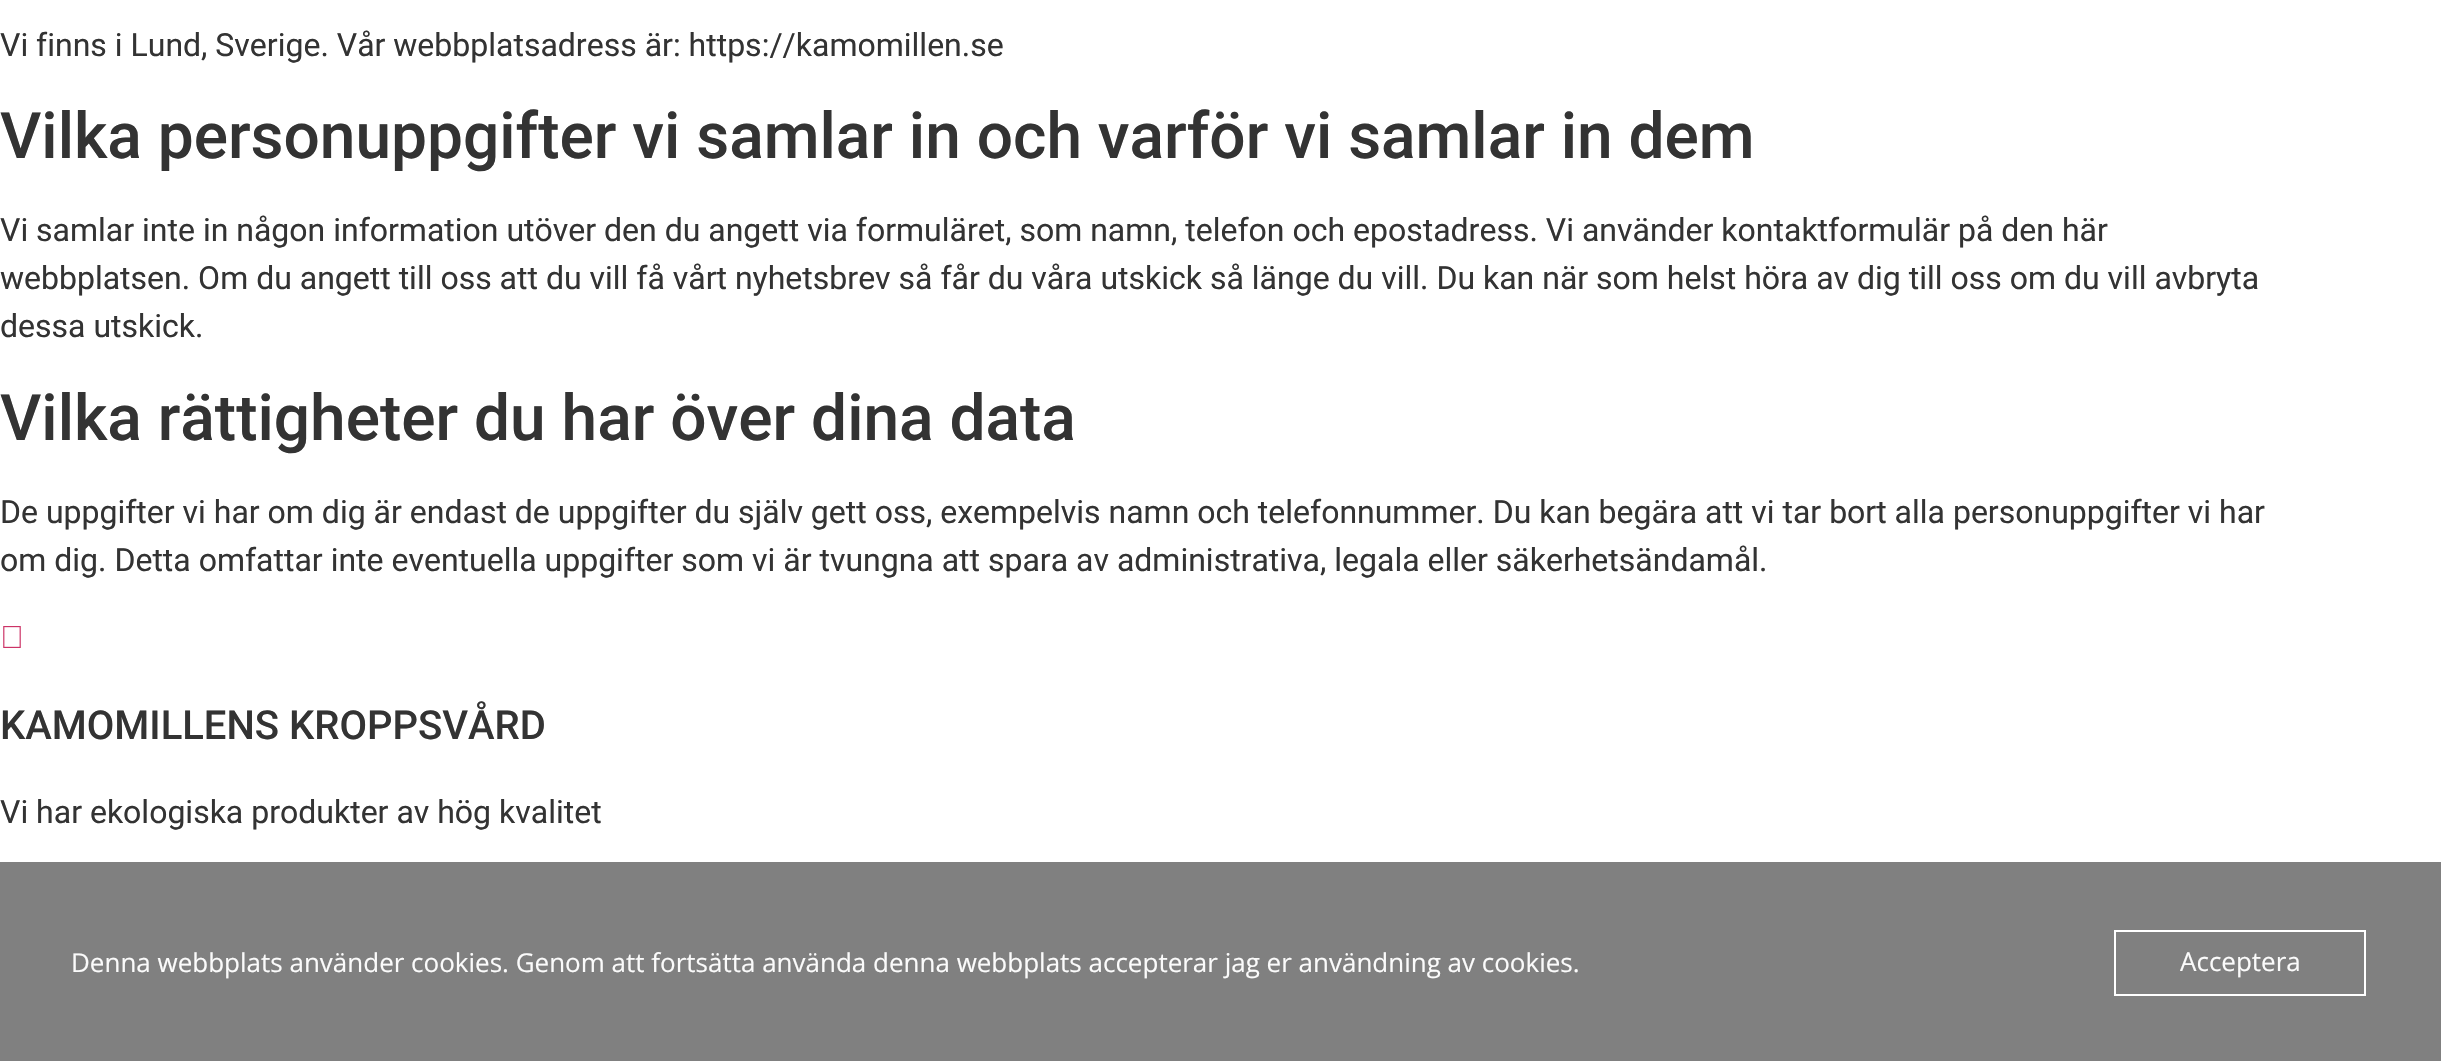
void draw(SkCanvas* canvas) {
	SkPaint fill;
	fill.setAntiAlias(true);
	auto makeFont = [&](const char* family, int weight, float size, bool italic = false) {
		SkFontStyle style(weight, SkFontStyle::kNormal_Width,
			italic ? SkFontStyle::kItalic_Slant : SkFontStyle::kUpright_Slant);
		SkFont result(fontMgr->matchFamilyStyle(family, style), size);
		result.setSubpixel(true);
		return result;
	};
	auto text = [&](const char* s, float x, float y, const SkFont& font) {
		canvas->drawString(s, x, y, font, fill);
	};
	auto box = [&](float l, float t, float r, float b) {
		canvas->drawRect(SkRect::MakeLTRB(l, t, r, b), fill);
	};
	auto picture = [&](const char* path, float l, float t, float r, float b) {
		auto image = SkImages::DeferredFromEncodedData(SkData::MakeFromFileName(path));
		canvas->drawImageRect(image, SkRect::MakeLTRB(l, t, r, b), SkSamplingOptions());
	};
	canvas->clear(0xFFFFFFFF);
	picture("image0.png", 3, 626, 21, 648);
	fill.setColor(0xF77C7C7C);
	box(0, 862, 2441, 1061);
	fill.setStyle(SkPaint::kStroke_Style);
	fill.setStrokeWidth(2);
	fill.setColor(0xFFFFFFFF);
	canvas->drawRect(SkRect::MakeLTRB(2115, 931, 2365, 995), fill);
	auto font1 = makeFont("Roboto", 400, 32);
	fill.setStyle(SkPaint::kFill_Style);
	fill.setColor(0xFF333333);
	text("Vi finns i Lund, Sverige. Vår webbplatsadress är: https://kamomillen.se", 0, 56, font1);
	auto font2 = makeFont("Roboto", 500, 64);
	text("Vilka personuppgifter vi samlar in och varför vi samlar in dem", 0, 158, font2);
	text("Vi samlar inte in någon information utöver den du angett via formuläret, som namn, telefon och epostadress. Vi använder kontaktformulär på den här", 0, 241, font1);
	text("webbplatsen. Om du angett till oss att du vill få vårt nyhetsbrev så får du våra utskick så länge du vill. Du kan när som helst höra av dig till oss om du vill avbryta", 0, 289, font1);
	text("dessa utskick.", 0, 337, font1);
	text("Vilka rättigheter du har över dina data", 0, 440, font2);
	text("De uppgifter vi har om dig är endast de uppgifter du själv gett oss, exempelvis namn och telefonnummer. Du kan begära att vi tar bort alla personuppgifter vi har", 0, 523, font1);
	text("om dig. Detta omfattar inte eventuella uppgifter som vi är tvungna att spara av administrativa, legala eller säkerhetsändamål.", 0, 571, font1);
	auto font3 = makeFont("Roboto", 500, 40);
	text("KAMOMILLENS KROPPSVÅRD", 0, 739, font3);
	text("Vi har ekologiska produkter av hög kvalitet", 0, 823, font1);
	auto font4 = makeFont("Open Sans", 400, 26);
	fill.setColor(0xFFFBFBFB);
	text("Denna webbplats använder cookies. Genom att fortsätta använda denna webbplats accepterar jag er användning av cookies.", 71, 972, font4);
	text("Acceptera", 2180, 971, font4);
}
